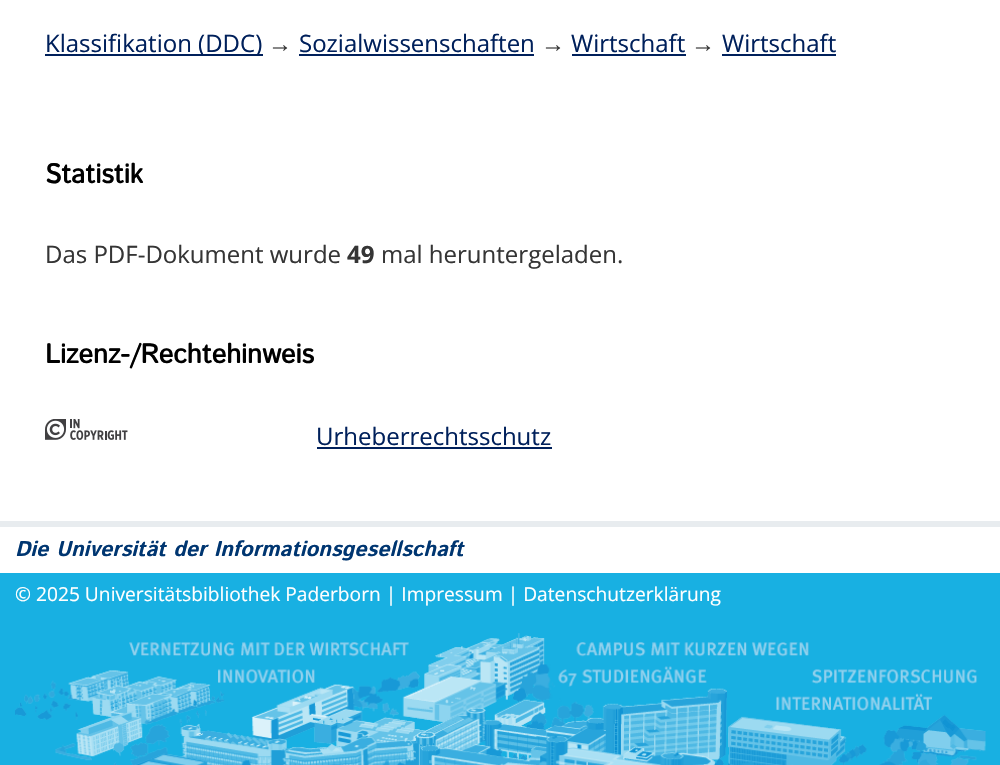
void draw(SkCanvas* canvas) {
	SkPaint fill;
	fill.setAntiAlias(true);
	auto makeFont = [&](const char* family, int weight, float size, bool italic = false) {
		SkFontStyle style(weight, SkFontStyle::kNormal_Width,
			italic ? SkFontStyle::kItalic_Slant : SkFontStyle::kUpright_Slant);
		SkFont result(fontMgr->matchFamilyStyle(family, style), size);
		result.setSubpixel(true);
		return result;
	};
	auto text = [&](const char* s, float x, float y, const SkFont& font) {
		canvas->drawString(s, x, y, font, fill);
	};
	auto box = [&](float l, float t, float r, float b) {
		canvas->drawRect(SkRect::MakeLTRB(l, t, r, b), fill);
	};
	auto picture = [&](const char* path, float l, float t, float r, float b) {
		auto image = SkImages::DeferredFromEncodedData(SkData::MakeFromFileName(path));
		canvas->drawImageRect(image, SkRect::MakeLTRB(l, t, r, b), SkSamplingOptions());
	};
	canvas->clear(0xFFFFFFFF);
	fill.setColor(0xFF00205B);
	box(45, 54, 263, 56);
	box(299, 54, 534, 56);
	box(572, 54, 686, 56);
	box(722, 54, 836, 56);
	picture("image0.png", 45, 419, 128, 440);
	box(317, 447, 552, 449);
	fill.setColor(0xFFE8ECEF);
	box(0, 521, 1000, 527);
	fill.setColor(0xFF18B0E2);
	box(0, 573, 1000, 765);
	picture("image1.png", 15, 633, 986, 765);
	auto font1 = makeFont("Open Sans", 400, 24);
	fill.setColor(0xFF00205B);
	text("Klassifikation (DDC)", 45, 52, font1);
	auto font2 = makeFont("Liberation Sans", 400, 24);
	fill.setColor(0xFF353535);
	text("→", 268, 52, font2);
	fill.setColor(0xFF00205B);
	text("Sozialwissenschaften", 299, 52, font1);
	fill.setColor(0xFF353535);
	text("→", 541, 52, font2);
	fill.setColor(0xFF00205B);
	text("Wirtschaft", 571, 52, font1);
	fill.setColor(0xFF353535);
	text("→", 691, 52, font2);
	fill.setColor(0xFF00205B);
	text("Wirtschaft", 722, 52, font1);
	auto font3 = makeFont("Istok Web", 700, 27);
	fill.setColor(0xFF000000);
	text("Statistik", 45, 183, font3);
	fill.setColor(0xFF353535);
	text("Das PDF-Dokument wurde", 45, 263, font1);
	auto font4 = makeFont("Open Sans", 700, 24);
	text("49", 347, 263, font4);
	text("mal heruntergeladen.", 381, 263, font1);
	fill.setColor(0xFF000000);
	text("Lizenz-/Rechtehinweis", 45, 363, font3);
	fill.setColor(0xFF00205B);
	text("Urheberrechtsschutz", 316, 445, font1);
	auto font5 = makeFont("Istok Web", 700, 21.6f, true);
	fill.setColor(0xFF003671);
	text("Die Universität der Informationsgesellschaft", 15, 556, font5);
	auto font6 = makeFont("Open Sans", 400, 19.2f);
	fill.setColor(0xFFFFFFFF);
	text("© 2025 Universitätsbibliothek Paderborn | Impressum | Datenschutzerklärung", 15, 601, font6);
}
